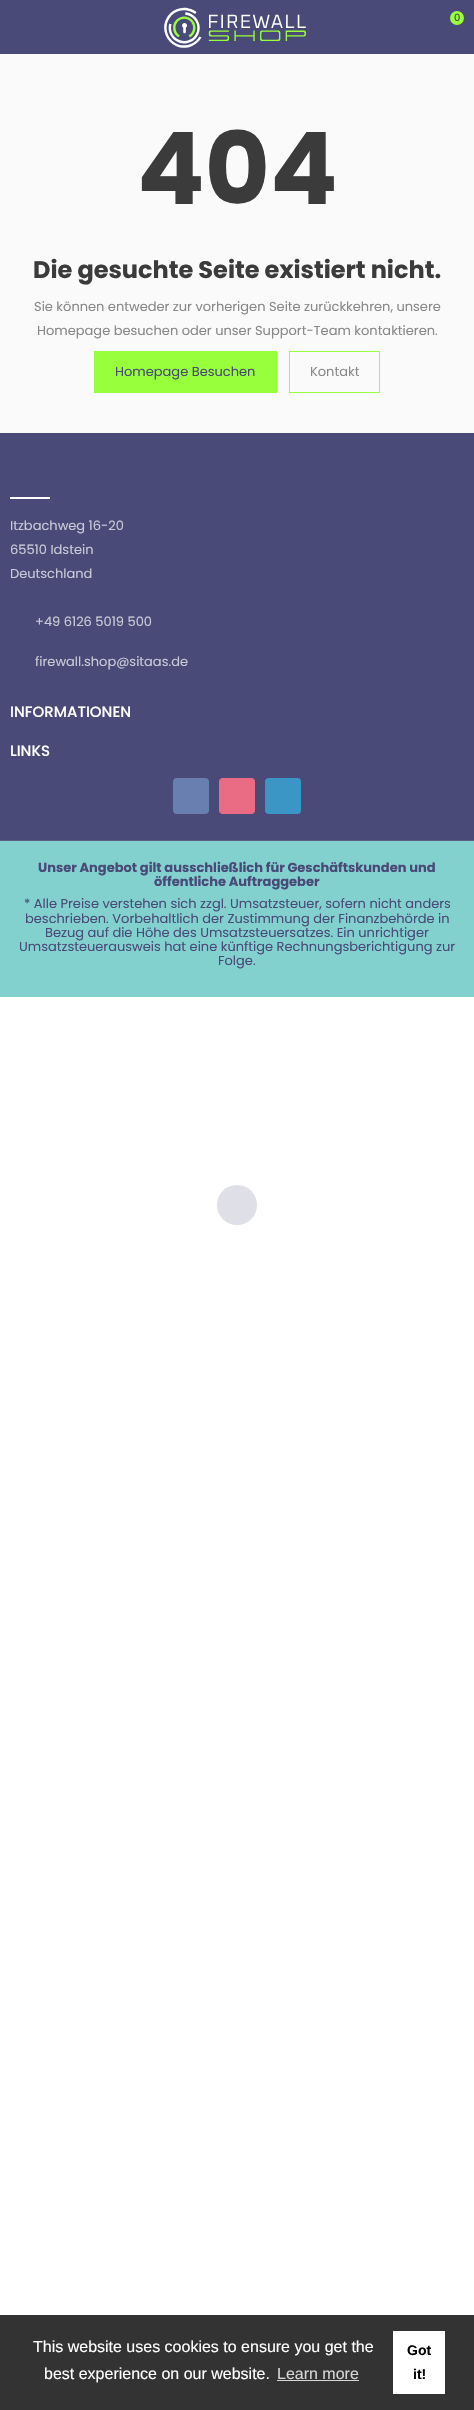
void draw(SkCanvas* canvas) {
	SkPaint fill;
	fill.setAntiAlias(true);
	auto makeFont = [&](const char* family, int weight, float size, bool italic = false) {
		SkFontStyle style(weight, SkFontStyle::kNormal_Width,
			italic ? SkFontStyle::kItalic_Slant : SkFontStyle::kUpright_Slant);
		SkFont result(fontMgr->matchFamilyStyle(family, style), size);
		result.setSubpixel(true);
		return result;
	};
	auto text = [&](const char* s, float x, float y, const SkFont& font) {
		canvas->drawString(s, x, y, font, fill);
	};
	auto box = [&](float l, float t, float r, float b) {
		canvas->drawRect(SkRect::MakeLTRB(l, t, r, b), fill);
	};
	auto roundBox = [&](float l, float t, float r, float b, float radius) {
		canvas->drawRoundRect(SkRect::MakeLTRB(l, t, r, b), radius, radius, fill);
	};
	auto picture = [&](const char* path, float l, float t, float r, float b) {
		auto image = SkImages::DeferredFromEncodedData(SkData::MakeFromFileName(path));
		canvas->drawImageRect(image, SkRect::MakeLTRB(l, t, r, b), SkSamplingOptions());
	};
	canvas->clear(0xFFFFFFFF);
	fill.setColor(0xFF4A4A78);
	box(0, 0, 474, 54);
	picture("image0.png", 164, 7, 306, 48);
	fill.setColor(0xFF97FF3B);
	canvas->drawCircle(457, 18, 7, fill);
	fill.setColor(0xFFFAFAFA);
	box(0, 54, 474, 433);
	fill.setColor(0xFF97FF3B);
	box(94, 351, 277, 393);
	fill.setStyle(SkPaint::kStroke_Style);
	fill.setStrokeWidth(1);
	canvas->drawRect(SkRect::MakeLTRB(289.5f, 351.5f, 379.5f, 392.5f), fill);
	fill.setStyle(SkPaint::kFill_Style);
	fill.setColor(0xFF4A4A78);
	box(0, 433, 474, 840);
	fill.setColor(0xFFFFFFFF);
	box(10, 497, 50, 499);
	fill.setColor(0xFF687FB0);
	roundBox(173, 778, 209, 814, 4);
	fill.setColor(0xFFEA6C84);
	roundBox(219, 778, 255, 814, 4);
	fill.setColor(0xFF3B96C6);
	roundBox(265, 778, 301, 814, 4);
	fill.setColor(0xFF5D5D86);
	box(0, 840, 474, 841);
	fill.setColor(0xFF82D1CF);
	box(0, 841, 474, 997);
	fill.setColor(0xFFDFDFE7);
	canvas->drawCircle(237, 1205, 20, fill);
	fill.setColor(0xFF333333);
	box(0, 2315, 474, 2410);
	fill.setColor(0xFFD6D6D6);
	box(277, 2380, 359, 2381);
	fill.setColor(0xFFFFFFFF);
	box(393, 2331, 445, 2394);
	auto font1 = makeFont("Poppins", 400, 10);
	fill.setColor(0xFF3B3B3B);
	text("0", 454, 21, font1);
	auto font2 = makeFont("Poppins", 700, 100);
	text("404", 137, 204, font2);
	auto font3 = makeFont("Poppins", 700, 24);
	text("Die gesuchte Seite existiert nicht.", 33, 278, font3);
	auto font4 = makeFont("Poppins", 400, 13);
	fill.setColor(0xFF898989);
	text("Sie können entweder zur vorherigen Seite zurückkehren, unsere", 34, 311, font4);
	text("Homepage besuchen oder unser Support-Team kontaktieren.", 37, 335, font4);
	fill.setColor(0xFF4A4A78);
	text("Homepage Besuchen", 115, 376, font4);
	fill.setColor(0xFF898989);
	text("Kontakt", 310, 376, font4);
	fill.setColor(0xFFC9C9D7);
	text("Itzbachweg 16-20", 10, 530, font4);
	text("65510 Idstein", 10, 554, font4);
	text("Deutschland", 10, 578, font4);
	text("+49 6126 5019 500", 35, 626, font4);
	text("firewall.shop@sitaas.de", 35, 666, font4);
	auto font5 = makeFont("Poppins", 500, 15);
	fill.setColor(0xFFFFFFFF);
	text("INFORMATIONEN", 10, 717, font5);
	text("LINKS", 10, 756, font5);
	auto font6 = makeFont("Poppins", 700, 13);
	fill.setColor(0xFF4A4A78);
	text("Unser Angebot gilt ausschließlich für Geschäftskunden und", 38, 872, font6);
	text("öffentliche Auftraggeber", 154, 886, font6);
	text("* Alle Preise verstehen sich zzgl. Umsatzsteuer, sofern nicht anders", 24, 908, font4);
	text("beschrieben. Vorbehaltlich der Zustimmung der Finanzbehörde in", 25, 923, font4);
	text("Bezug auf die Höhe des Umsatzsteuersatzes. Ein unrichtiger", 45, 937, font4);
	text("Umsatzsteuerausweis hat eine künftige Rechnungsberichtigung zur", 19, 951, font4);
	text("Folge.", 218, 965, font4);
	auto font7 = makeFont("Liberation Sans", 400, 16);
	fill.setColor(0xFFFFFFFF);
	text("This website uses cookies to ensure you get the", 33, 2352, font7);
	text("best experience on our website.", 44, 2379, font7);
	fill.setColor(0xFFD6D6D6);
	text("Learn more", 277, 2379, font7);
	auto font8 = makeFont("Liberation Sans", 700, 14);
	fill.setColor(0xFF000000);
	text("Got", 407, 2355, font8);
	text("it!", 413, 2379, font8);
}
